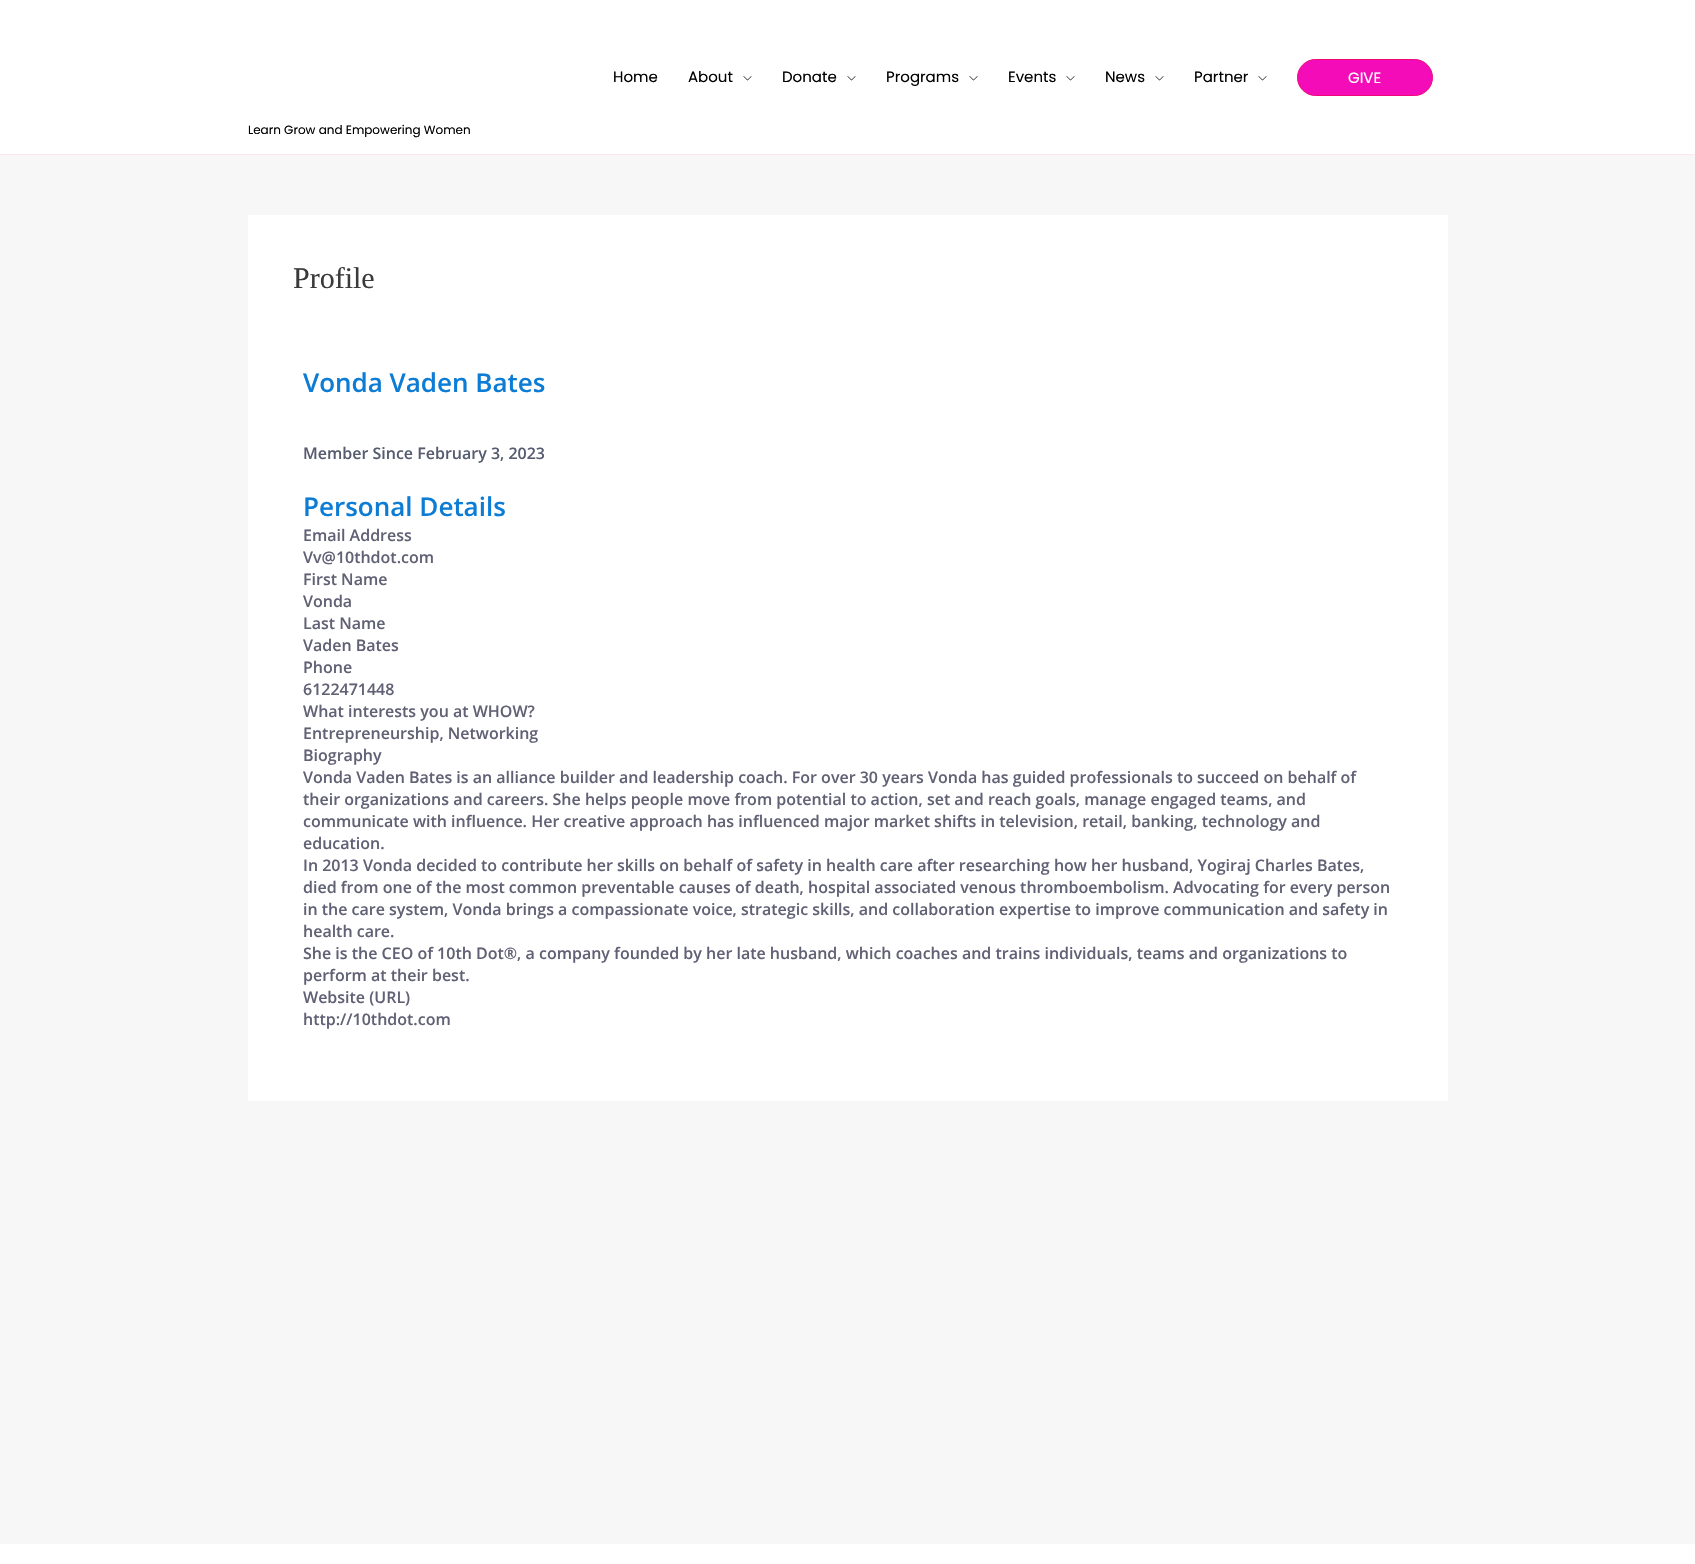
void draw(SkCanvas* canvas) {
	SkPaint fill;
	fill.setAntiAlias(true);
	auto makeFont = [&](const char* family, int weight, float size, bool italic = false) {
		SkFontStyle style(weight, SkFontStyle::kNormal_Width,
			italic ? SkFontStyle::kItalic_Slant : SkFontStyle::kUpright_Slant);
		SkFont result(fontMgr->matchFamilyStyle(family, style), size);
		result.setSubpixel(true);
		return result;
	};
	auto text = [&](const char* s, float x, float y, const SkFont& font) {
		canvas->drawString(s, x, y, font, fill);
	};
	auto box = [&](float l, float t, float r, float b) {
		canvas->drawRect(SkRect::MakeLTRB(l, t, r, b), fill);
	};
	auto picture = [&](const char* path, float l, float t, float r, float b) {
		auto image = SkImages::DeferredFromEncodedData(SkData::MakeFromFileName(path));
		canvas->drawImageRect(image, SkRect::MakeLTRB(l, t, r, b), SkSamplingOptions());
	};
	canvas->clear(0xFFF7F7F7);
	fill.setColor(0xFFFFFFFF);
	box(0, 0, 1695, 154);
	fill.setColor(0xFFFDE6F1);
	box(0, 154, 1695, 155);
	picture("image0.png", 743, 76, 752, 81);
	picture("image0.png", 847, 76, 856, 81);
	picture("image0.png", 969, 76, 978, 81);
	picture("image0.png", 1066, 76, 1075, 81);
	picture("image0.png", 1155, 76, 1164, 81);
	picture("image0.png", 1258, 76, 1267, 81);
	fill.setColor(0xFFF40CB8);
	canvas->drawRoundRect(SkRect::MakeLTRB(1297.5f, 59.5f, 1432.5f, 95.5f), 18, 18, fill);
	fill.setStyle(SkPaint::kStroke_Style);
	fill.setStrokeWidth(1);
	fill.setColor(0xFFEE0979);
	canvas->drawRoundRect(SkRect::MakeLTRB(1297.5f, 59.5f, 1432.5f, 95.5f), 18, 18, fill);
	fill.setStyle(SkPaint::kFill_Style);
	fill.setColor(0xFFFFFFFF);
	box(248, 215, 1448, 1101);
	box(0, 1544, 1695, 1564);
	auto font1 = makeFont("Poppins", 400, 15);
	fill.setColor(0xFF000000);
	text("Home", 613, 82, font1);
	text("About", 688, 82, font1);
	text("Donate", 782, 82, font1);
	text("Programs", 886, 82, font1);
	text("Events", 1008, 82, font1);
	text("News", 1105, 82, font1);
	text("Partner", 1194, 82, font1);
	fill.setColor(0xFFFFFFFF);
	text("GIVE", 1348, 83, font1);
	auto font2 = makeFont("Poppins", 400, 12);
	fill.setColor(0xFF000000);
	text("Learn Grow and Empowering Women", 248, 134, font2);
	auto font3 = makeFont("Liberation Serif", 400, 30);
	fill.setColor(0xFF3A3A3A);
	text("Profile", 293, 288, font3);
	auto font4 = makeFont("Open Sans", 600, 26);
	fill.setColor(0xFF0C7CD5);
	text("Vonda Vaden Bates", 303, 392, font4);
	auto font5 = makeFont("Open Sans", 600, 16);
	fill.setColor(0xFF575D70);
	text("Member Since February 3, 2023", 303, 459, font5);
	fill.setColor(0xFF0C7CD5);
	text("Personal Details", 303, 516, font4);
	fill.setColor(0xFF616175);
	text("Email Address", 303, 541, font5);
	text("Vv@10thdot.com", 303, 563, font5);
	text("First Name", 303, 585, font5);
	text("Vonda", 303, 607, font5);
	text("Last Name", 303, 629, font5);
	text("Vaden Bates", 303, 651, font5);
	text("Phone", 303, 673, font5);
	text("6122471448", 303, 695, font5);
	text("What interests you at WHOW?", 303, 717, font5);
	text("Entrepreneurship, Networking", 303, 739, font5);
	text("Biography", 303, 761, font5);
	text("Vonda Vaden Bates is an alliance builder and leadership coach. For over 30 years Vonda has guided professionals to succeed on behalf of", 303, 783, font5);
	text("their organizations and careers. She helps people move from potential to action, set and reach goals, manage engaged teams, and", 303, 805, font5);
	text("communicate with influence. Her creative approach has influenced major market shifts in television, retail, banking, technology and", 303, 827, font5);
	text("education.", 303, 849, font5);
	text("In 2013 Vonda decided to contribute her skills on behalf of safety in health care after researching how her husband, Yogiraj Charles Bates,", 303, 871, font5);
	text("died from one of the most common preventable causes of death, hospital associated venous thromboembolism. Advocating for every person", 303, 893, font5);
	text("in the care system, Vonda brings a compassionate voice, strategic skills, and collaboration expertise to improve communication and safety in", 303, 915, font5);
	text("health care.", 303, 937, font5);
	text("She is the CEO of 10th Dot®, a company founded by her late husband, which coaches and trains individuals, teams and organizations to", 303, 959, font5);
	text("perform at their best.", 303, 981, font5);
	text("Website (URL)", 303, 1003, font5);
	text("http://10thdot.com", 303, 1025, font5);
}
